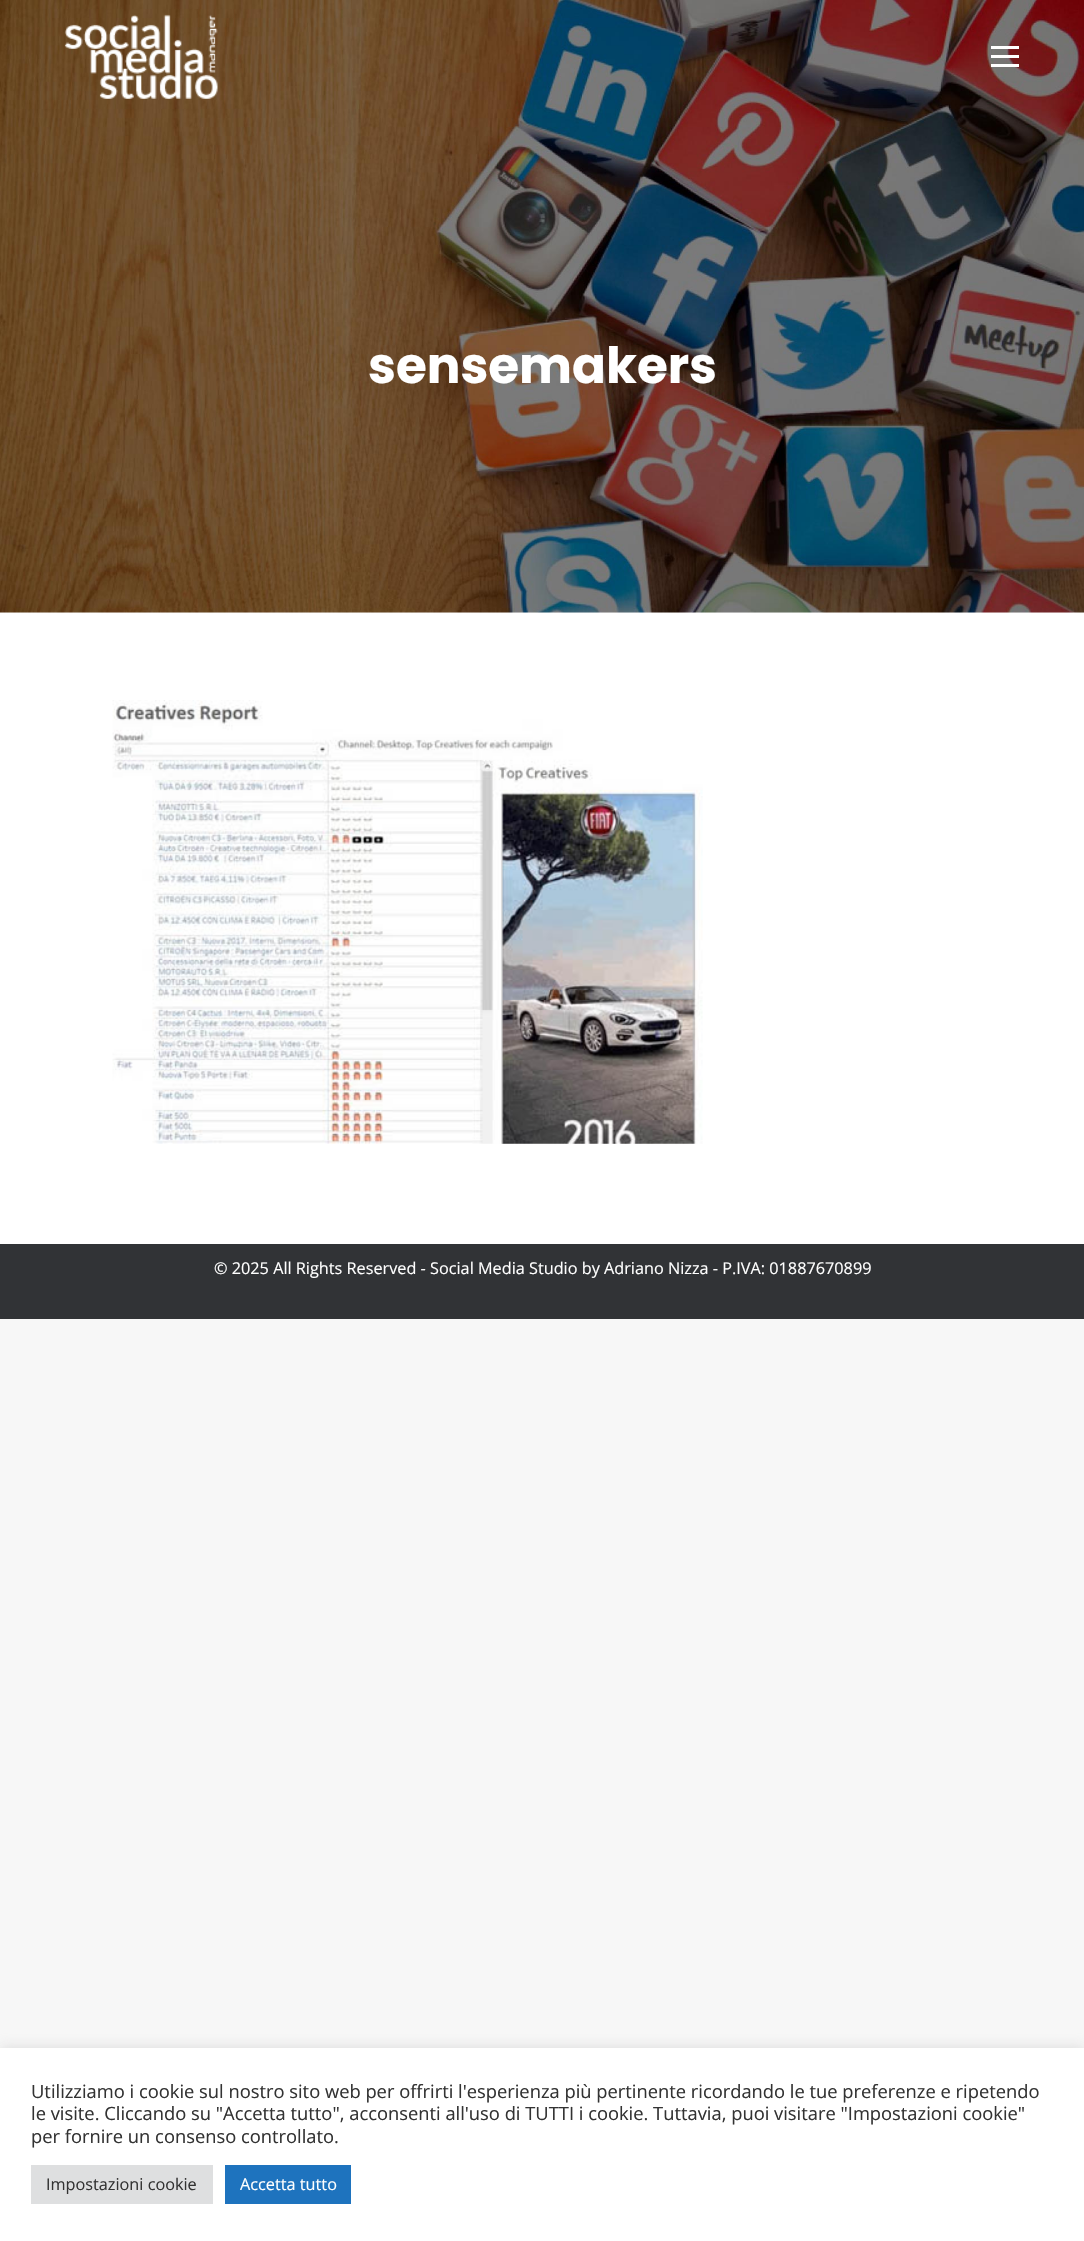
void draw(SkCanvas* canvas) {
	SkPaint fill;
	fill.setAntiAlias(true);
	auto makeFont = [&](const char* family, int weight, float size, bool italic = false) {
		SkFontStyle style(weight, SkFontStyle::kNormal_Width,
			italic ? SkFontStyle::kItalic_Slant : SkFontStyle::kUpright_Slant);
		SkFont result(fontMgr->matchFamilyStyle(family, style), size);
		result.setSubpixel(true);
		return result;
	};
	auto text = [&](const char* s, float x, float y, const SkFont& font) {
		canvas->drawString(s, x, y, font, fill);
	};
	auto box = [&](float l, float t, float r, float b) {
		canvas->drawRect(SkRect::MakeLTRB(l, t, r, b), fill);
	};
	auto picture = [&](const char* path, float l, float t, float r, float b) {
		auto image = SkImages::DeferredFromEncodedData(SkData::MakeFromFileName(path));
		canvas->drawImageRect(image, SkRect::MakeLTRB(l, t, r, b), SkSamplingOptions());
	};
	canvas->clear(0xFFF7F7F7);
	fill.setColor(0xFFFFFFFF);
	box(0, 613, 1084, 1244);
	picture("image1.png", 0, 0, 1084, 613);
	picture("image0.png", 64, 14, 218, 99);
	box(991, 46, 1019, 49);
	box(991, 55, 1019, 58);
	box(991, 64, 1019, 67);
	picture("image2.png", 112, 700, 703, 1144);
	fill.setColor(0xFF313336);
	box(0, 1244, 1084, 1319);
	fill.setColor(0x4DACABAB);
	fill.setMaskFilter(SkMaskFilter::MakeBlur(kNormal_SkBlurStyle, 6));
	canvas->drawRect(SkRect::MakeLTRB(0, 2046, 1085, 2240), fill);
	fill.setMaskFilter(nullptr);
	fill.setColor(0xFFFFFFFF);
	box(0, 2048, 1084, 2241);
	fill.setColor(0xFFDEDFE0);
	box(31, 2165, 213, 2204);
	fill.setColor(0xFF1E73BE);
	box(225, 2165, 351, 2204);
	auto font1 = makeFont("Poppins", 700, 50);
	fill.setColor(0xFFFFFFFF);
	text("sensemakers", 368, 383, font1);
	auto font2 = makeFont("Open Sans", 400, 16.25f);
	text("© 2025 All Rights Reserved - Social Media Studio by Adriano Nizza - P.IVA: 01887670899", 214, 1274, font2);
	auto font3 = makeFont("Open Sans", 400, 18.33f);
	fill.setColor(0xFF333333);
	text("Utilizziamo i cookie sul nostro sito web per offrirti l'esperienza più pertinente ricordando le tue preferenze e ripetendo", 31, 2098, font3);
	text("le visite. Cliccando su \"Accetta tutto\", acconsenti all'uso di TUTTI i cookie. Tuttavia, puoi visitare \"Impostazioni cookie\"", 31, 2120, font3);
	text("per fornire un consenso controllato.", 31, 2143, font3);
	text("Impostazioni cookie", 46, 2190, font2);
	fill.setColor(0xFFFFFFFF);
	text("Accetta tutto", 240, 2190, font2);
}
